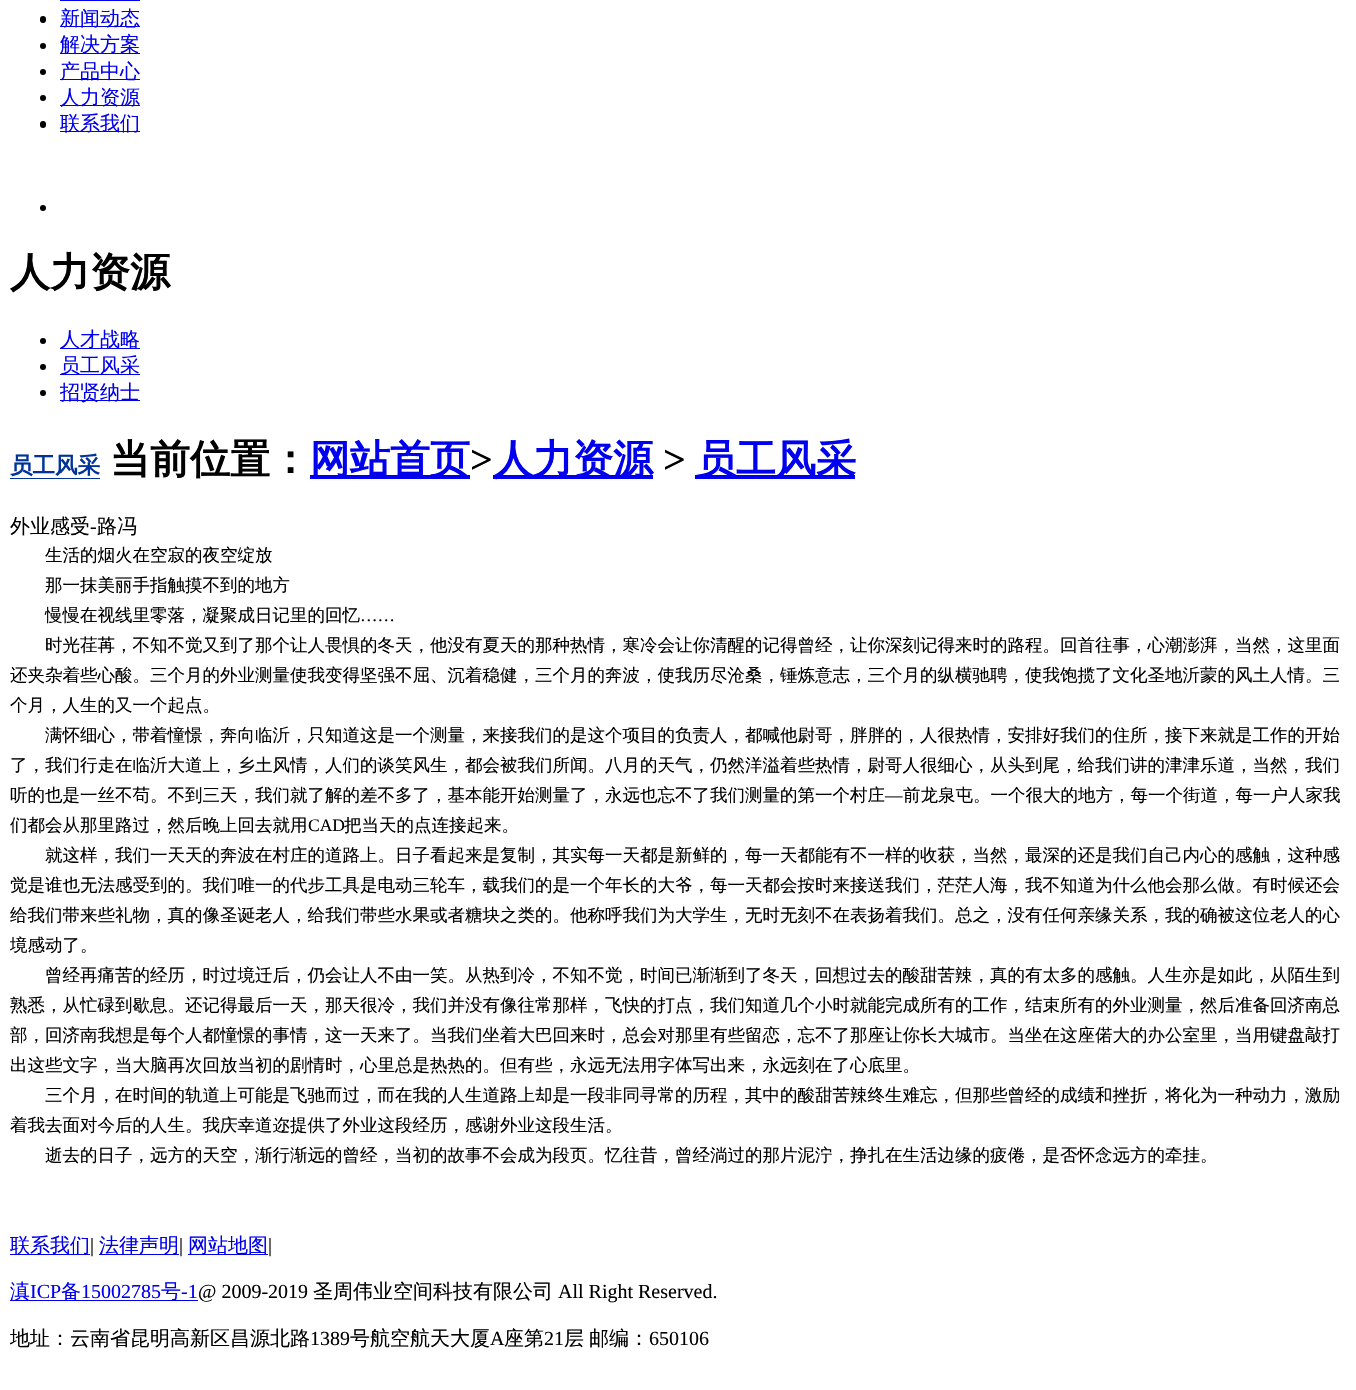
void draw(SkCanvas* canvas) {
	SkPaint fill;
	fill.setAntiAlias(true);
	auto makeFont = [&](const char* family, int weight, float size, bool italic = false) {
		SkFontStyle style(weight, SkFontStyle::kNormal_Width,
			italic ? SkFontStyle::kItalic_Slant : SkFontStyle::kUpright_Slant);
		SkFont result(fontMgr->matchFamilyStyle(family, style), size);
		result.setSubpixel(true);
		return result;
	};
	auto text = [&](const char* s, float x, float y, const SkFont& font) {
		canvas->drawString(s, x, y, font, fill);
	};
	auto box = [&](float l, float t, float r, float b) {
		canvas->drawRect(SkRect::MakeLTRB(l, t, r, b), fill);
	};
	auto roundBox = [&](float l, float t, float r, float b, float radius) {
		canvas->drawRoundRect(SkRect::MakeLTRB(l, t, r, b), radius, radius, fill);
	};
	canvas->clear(0xFFFFFFFF);
	fill.setColor(0xFF0000EE);
	box(60, 0, 140, 1);
	fill.setColor(0xFF000000);
	roundBox(40, 16, 46, 23, 3);
	fill.setColor(0xFF0000EE);
	box(60, 26, 140, 27);
	fill.setColor(0xFF000000);
	canvas->drawCircle(43, 46, 3, fill);
	fill.setColor(0xFF0000EE);
	box(60, 53, 140, 54);
	fill.setColor(0xFF000000);
	canvas->drawCircle(43, 72, 3, fill);
	fill.setColor(0xFF0000EE);
	box(60, 79, 140, 80);
	fill.setColor(0xFF000000);
	canvas->drawCircle(43, 98, 3, fill);
	fill.setColor(0xFF0000EE);
	box(60, 105, 140, 106);
	fill.setColor(0xFF000000);
	roundBox(40, 121, 46, 128, 3);
	fill.setColor(0xFF0000EE);
	box(60, 131, 140, 132);
	fill.setColor(0xFF000000);
	canvas->drawCircle(43, 208, 3, fill);
	canvas->drawCircle(43, 341, 3, fill);
	fill.setColor(0xFF0000EE);
	box(60, 348, 140, 349);
	fill.setColor(0xFF000000);
	canvas->drawCircle(43, 367, 3, fill);
	fill.setColor(0xFF0000EE);
	box(60, 374, 140, 375);
	fill.setColor(0xFF000000);
	canvas->drawCircle(43, 393, 3, fill);
	fill.setColor(0xFF0000EE);
	box(60, 400, 140, 401);
	fill.setColor(0xFF003399);
	box(10, 478, 100, 479);
	fill.setColor(0xFF0000EE);
	box(310, 475, 470, 479);
	box(493, 475, 653, 479);
	box(695, 475, 855, 479);
	box(10, 1254, 90, 1255);
	box(99, 1254, 179, 1255);
	box(188, 1254, 268, 1255);
	box(10, 1300, 198, 1301);
	auto font1 = makeFont("WenQuanYi Zen Hei", 500, 20);
	text("新闻动态", 60, 25, font1);
	text("解决方案", 60, 51, font1);
	text("产品中心", 60, 78, font1);
	text("人力资源", 60, 104, font1);
	text("联系我们", 60, 130, font1);
	auto font2 = makeFont("WenQuanYi Zen Hei", 700, 40);
	fill.setColor(0xFF000000);
	text("人力资源", 10, 286, font2);
	fill.setColor(0xFF0000EE);
	text("人才战略", 60, 346, font1);
	text("员工风采", 60, 372, font1);
	text("招贤纳士", 60, 399, font1);
	auto font3 = makeFont("WenQuanYi Zen Hei", 700, 22.5f);
	fill.setColor(0xFF003399);
	text("员工风采", 10, 473, font3);
	fill.setColor(0xFF000000);
	text("当前位置：", 110, 473, font2);
	fill.setColor(0xFF0000EE);
	text("网站首页", 310, 473, font2);
	auto font4 = makeFont("Liberation Serif", 700, 40);
	fill.setColor(0xFF000000);
	text(">", 470, 473, font4);
	fill.setColor(0xFF0000EE);
	text("人力资源", 493, 473, font2);
	fill.setColor(0xFF000000);
	text(">", 663, 473, font4);
	fill.setColor(0xFF0000EE);
	text("员工风采", 696, 473, font2);
	fill.setColor(0xFF000000);
	text("外业感受", 10, 533, font1);
	auto font5 = makeFont("Liberation Serif", 400, 20);
	text("-", 90, 533, font5);
	text("路冯", 97, 533, font1);
	auto font6 = makeFont("WenQuanYi Zen Hei", 500, 17.5f);
	text("生活的烟火在空寂的夜空绽放", 45, 561, font6);
	text("那一抹美丽手指触摸不到的地方", 45, 591, font6);
	text("慢慢在视线里零落，凝聚成日记里的回忆", 45, 621, font6);
	auto font7 = makeFont("Liberation Serif", 400, 17.5f);
	text("……", 360, 621, font7);
	text("时光荏苒，不知不觉又到了那个让人畏惧的冬天，他没有夏天的那种热情，寒冷会让你清醒的记得曾经，让你深刻记得来时的路程。回首往事，心潮澎湃，当然，这里面", 45, 651, font6);
	text("还夹杂着些心酸。三个月的外业测量使我变得坚强不屈、沉着稳健，三个月的奔波，使我历尽沧桑，锤炼意志，三个月的纵横驰聘，使我饱揽了文化圣地沂蒙的风土人情。三", 10, 681, font6);
	text("个月，人生的又一个起点。", 10, 711, font6);
	text("满怀细心，带着憧憬，奔向临沂，只知道这是一个测量，来接我们的是这个项目的负责人，都喊他尉哥，胖胖的，人很热情，安排好我们的住所，接下来就是工作的开始", 45, 741, font6);
	text("了，我们行走在临沂大道上，乡土风情，人们的谈笑风生，都会被我们所闻。八月的天气，仍然洋溢着些热情，尉哥人很细心，从头到尾，给我们讲的津津乐道，当然，我们", 10, 771, font6);
	text("听的也是一丝不苟。不到三天，我们就了解的差不多了，基本能开始测量了，永远也忘不了我们测量的第一个村庄", 10, 801, font6);
	text("—", 885, 801, font7);
	text("前龙泉屯。一个很大的地方，每一个街道，每一户人家我", 903, 801, font6);
	text("们都会从那里路过，然后晚上回去就用", 10, 831, font6);
	text("CAD", 308, 831, font7);
	text("把当天的点连接起来。", 344, 831, font6);
	text("就这样，我们一天天的奔波在村庄的道路上。日子看起来是复制，其实每一天都是新鲜的，每一天都能有不一样的收获，当然，最深的还是我们自己内心的感触，这种感", 45, 861, font6);
	text("觉是谁也无法感受到的。我们唯一的代步工具是电动三轮车，载我们的是一个年长的大爷，每一天都会按时来接送我们，茫茫人海，我不知道为什么他会那么做。有时候还会", 10, 891, font6);
	text("给我们带来些礼物，真的像圣诞老人，给我们带些水果或者糖块之类的。他称呼我们为大学生，无时无刻不在表扬着我们。总之，没有任何亲缘关系，我的确被这位老人的心", 10, 921, font6);
	text("境感动了。", 10, 951, font6);
	text("曾经再痛苦的经历，时过境迁后，仍会让人不由一笑。从热到冷，不知不觉，时间已渐渐到了冬天，回想过去的酸甜苦辣，真的有太多的感触。人生亦是如此，从陌生到", 45, 981, font6);
	text("熟悉，从忙碌到歇息。还记得最后一天，那天很冷，我们并没有像往常那样，飞快的打点，我们知道几个小时就能完成所有的工作，结束所有的外业测量，然后准备回济南总", 10, 1011, font6);
	text("部，回济南我想是每个人都憧憬的事情，这一天来了。当我们坐着大巴回来时，总会对那里有些留恋，忘不了那座让你长大城市。当坐在这座偌大的办公室里，当用键盘敲打", 10, 1041, font6);
	text("出这些文字，当大脑再次回放当初的剧情时，心里总是热热的。但有些，永远无法用字体写出来，永远刻在了心底里。", 10, 1071, font6);
	text("三个月，在时间的轨道上可能是飞驰而过，而在我的人生道路上却是一段非同寻常的历程，其中的酸甜苦辣终生难忘，但那些曾经的成绩和挫折，将化为一种动力，激励", 45, 1101, font6);
	text("着我去面对今后的人生。我庆幸道迩提供了外业这段经历，感谢外业这段生活。", 10, 1131, font6);
	text("逝去的日子，远方的天空，渐行渐远的曾经，当初的故事不会成为段页。忆往昔，曾经淌过的那片泥泞，挣扎在生活边缘的疲倦，是否怀念远方的牵挂。", 45, 1161, font6);
	fill.setColor(0xFF0000EE);
	text("联系我们", 10, 1252, font1);
	fill.setColor(0xFF000000);
	text("|", 90, 1252, font5);
	fill.setColor(0xFF0000EE);
	text("法律声明", 99, 1252, font1);
	fill.setColor(0xFF000000);
	text("|", 179, 1252, font5);
	fill.setColor(0xFF0000EE);
	text("网站地图", 188, 1252, font1);
	fill.setColor(0xFF000000);
	text("|", 268, 1252, font5);
	fill.setColor(0xFF0000EE);
	text("滇", 10, 1298, font1);
	text("ICP", 30, 1298, font5);
	text("备", 61, 1298, font1);
	text("15002785", 81, 1298, font5);
	text("号", 161, 1298, font1);
	text("-1", 181, 1298, font5);
	fill.setColor(0xFF000000);
	text("@ 2009-2019", 198, 1298, font5);
	text("圣周伟业空间科技有限公司", 313, 1298, font1);
	text("All Right Reserved.", 558, 1298, font5);
	text("地址：云南省昆明高新区昌源北路", 10, 1345, font1);
	text("1389", 310, 1345, font5);
	text("号航空航天大厦", 350, 1345, font1);
	text("A", 490, 1345, font5);
	text("座第", 504, 1345, font1);
	text("21", 544, 1345, font5);
	text("层", 564, 1345, font1);
	text("邮编：", 589, 1345, font1);
	text("650106", 649, 1345, font5);
}
